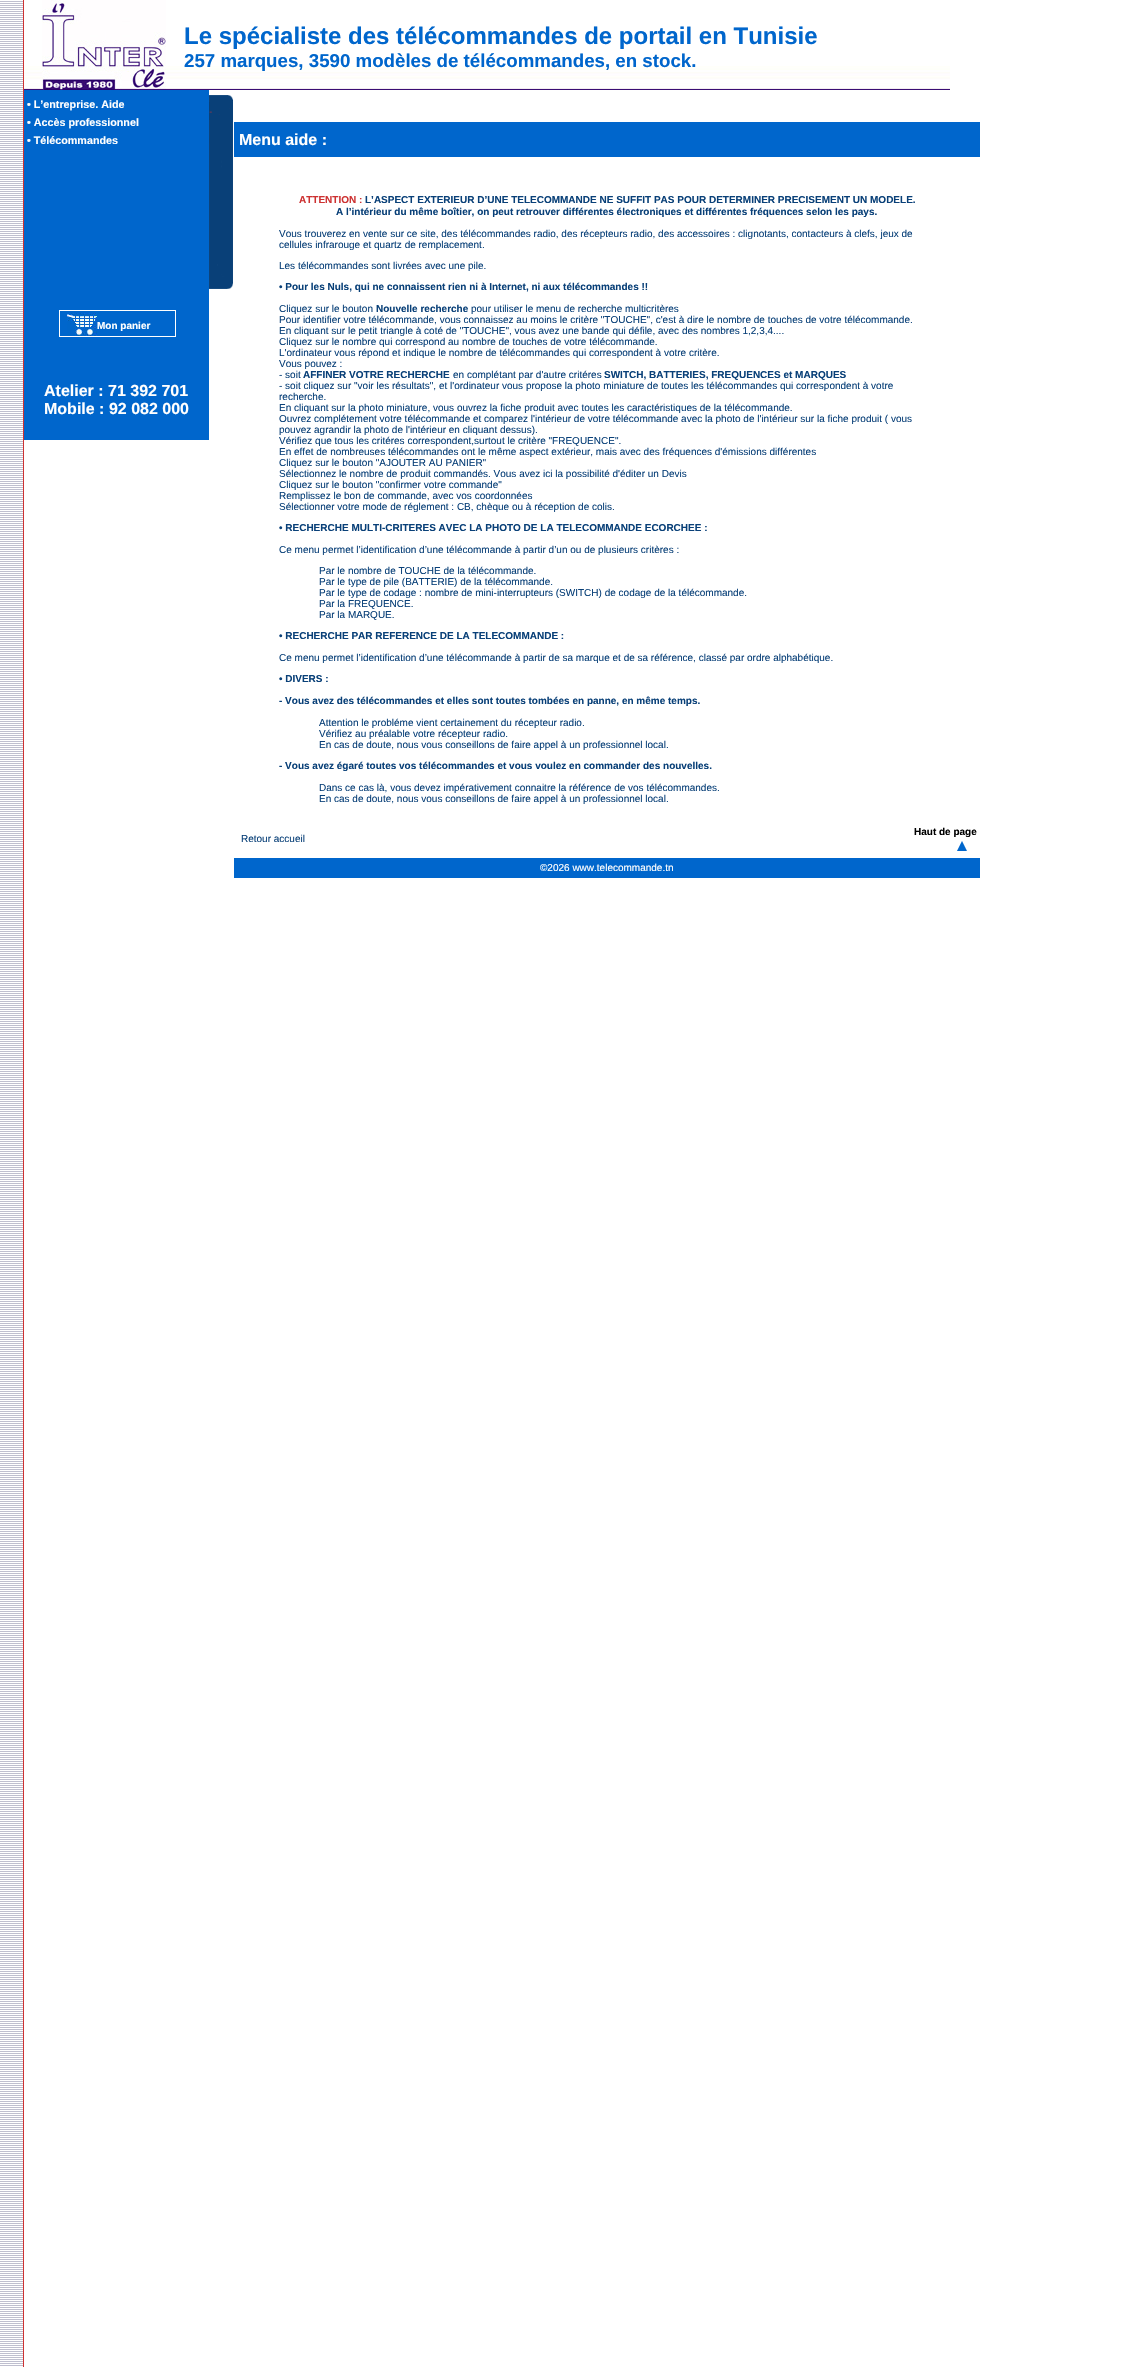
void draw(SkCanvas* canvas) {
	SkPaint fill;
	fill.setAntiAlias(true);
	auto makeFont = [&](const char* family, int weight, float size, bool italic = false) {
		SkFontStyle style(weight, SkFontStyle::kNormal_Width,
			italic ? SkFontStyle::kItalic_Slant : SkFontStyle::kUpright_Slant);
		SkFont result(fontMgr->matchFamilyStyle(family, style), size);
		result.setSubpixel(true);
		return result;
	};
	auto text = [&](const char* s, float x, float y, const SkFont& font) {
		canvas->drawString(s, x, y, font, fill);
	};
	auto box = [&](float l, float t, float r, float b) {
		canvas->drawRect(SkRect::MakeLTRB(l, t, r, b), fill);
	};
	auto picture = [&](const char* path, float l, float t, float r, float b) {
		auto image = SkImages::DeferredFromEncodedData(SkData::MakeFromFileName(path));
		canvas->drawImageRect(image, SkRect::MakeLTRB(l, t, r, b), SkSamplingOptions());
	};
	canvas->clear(0xFFFFFFFF);
	picture("image0.png", 0, 0, 24, 2367);
	picture("image1.png", 24, 66, 950, 90);
	picture("image2.png", 42, 0, 166, 90);
	fill.setColor(0xFF0066CC);
	box(24, 90, 209, 440);
	fill.setStyle(SkPaint::kStroke_Style);
	fill.setStrokeWidth(1);
	fill.setColor(0xFFFFFFFF);
	canvas->drawRect(SkRect::MakeLTRB(59.5f, 310.5f, 175.5f, 336.5f), fill);
	picture("image3.png", 67, 313, 97, 336);
	picture("image4.png", 209, 95, 233, 289);
	fill.setStyle(SkPaint::kFill_Style);
	fill.setColor(0xFF0066CC);
	box(234, 122, 980, 157);
	picture("image5.png", 957, 841, 967, 851);
	box(234, 858, 980, 878);
	auto font1 = makeFont("Liberation Sans", 700, 24);
	text("Le spécialiste des télécommandes de portail en Tunisie", 184, 44, font1);
	auto font2 = makeFont("Liberation Sans", 700, 18.7f);
	text("257 marques, 3590 modèles de télécommandes, en stock.", 184, 67, font2);
	auto font3 = makeFont("Liberation Sans", 700, 10.75f);
	fill.setColor(0xFFFFFFFF);
	text("• L’entreprise. Aide", 27, 108, font3);
	text("• Accès professionnel", 27, 126, font3);
	text("• Télécommandes", 27, 144, font3);
	auto font4 = makeFont("Liberation Sans", 700, 10);
	text("Mon panier", 97, 329, font4);
	auto font5 = makeFont("Liberation Sans", 700, 16);
	text("Atelier : 71 392 701", 44, 396, font5);
	text("Mobile : 92 082 000", 44, 414, font5);
	text("Menu aide :", 239, 145, font5);
	fill.setColor(0xFFCD3232);
	text("ATTENTION :", 299, 203, font4);
	fill.setColor(0xFF094078);
	text("L’ASPECT EXTERIEUR D’UNE TELECOMMANDE NE SUFFIT PAS POUR DETERMINER PRECISEMENT UN MODELE.", 365, 203, font4);
	text("A l’intérieur du même boîtier, on peut retrouver différentes électroniques et différentes fréquences selon les pays.", 336, 215, font4);
	auto font6 = makeFont("Liberation Sans", 400, 10);
	text("Vous trouverez en vente sur ce site, des télécommandes radio, des récepteurs radio, des accessoires : clignotants, contacteurs à clefs, jeux de", 279, 237, font6);
	text("cellules infrarouge et quartz de remplacement.", 279, 248, font6);
	text("Les télécommandes sont livrées avec une pile.", 279, 269, font6);
	text("• Pour les Nuls, qui ne connaissent rien ni à Internet, ni aux télécommandes !!", 279, 290, font4);
	text("Cliquez sur le bouton", 279, 312, font6);
	text("Nouvelle recherche", 376, 312, font4);
	text("pour utiliser le menu de recherche multicritères", 471, 312, font6);
	text("Pour identifier votre télécommande, vous connaissez au moins le critère \"TOUCHE\", c'est à dire le nombre de touches de votre télécommande.", 279, 323, font6);
	text("En cliquant sur le petit triangle à coté de \"TOUCHE\", vous avez une bande qui défile, avec des nombres 1,2,3,4....", 279, 334, font6);
	text("Cliquez sur le nombre qui correspond au nombre de touches de votre télécommande.", 279, 345, font6);
	text("L'ordinateur vous répond et indique le nombre de télécommandes qui correspondent à votre critère.", 279, 356, font6);
	text("Vous pouvez :", 279, 367, font6);
	text("- soit", 279, 378, font6);
	text("AFFINER VOTRE RECHERCHE", 303, 378, font4);
	text("en complétant par d'autre critéres", 453, 378, font6);
	text("SWITCH, BATTERIES, FREQUENCES et MARQUES", 604, 378, font4);
	text("- soit cliquez sur \"voir les résultats\", et l'ordinateur vous propose la photo miniature de toutes les télécommandes qui correspondent à votre", 279, 389, font6);
	text("recherche.", 279, 400, font6);
	text("En cliquant sur la photo miniature, vous ouvrez la fiche produit avec toutes les caractéristiques de la télécommande.", 279, 411, font6);
	text("Ouvrez complétement votre télécommande et comparez l'intérieur de votre télécommande avec la photo de l'intérieur sur la fiche produit ( vous", 279, 422, font6);
	text("pouvez agrandir la photo de l'intérieur en cliquant dessus).", 279, 433, font6);
	text("Vérifiez que tous les critéres correspondent,surtout le critère \"FREQUENCE\".", 279, 444, font6);
	text("En effet de nombreuses télécommandes ont le même aspect extérieur, mais avec des fréquences d'émissions différentes", 279, 455, font6);
	text("Cliquez sur le bouton \"AJOUTER AU PANIER\"", 279, 466, font6);
	text("Sélectionnez le nombre de produit commandés. Vous avez ici la possibilité d'éditer un Devis", 279, 477, font6);
	text("Cliquez sur le bouton \"confirmer votre commande\"", 279, 488, font6);
	text("Remplissez le bon de commande, avec vos coordonnées", 279, 499, font6);
	text("Sélectionner votre mode de réglement : CB, chèque ou à réception de colis.", 279, 510, font6);
	text("• RECHERCHE MULTI-CRITERES AVEC LA PHOTO DE LA TELECOMMANDE ECORCHEE :", 279, 531, font4);
	text("Ce menu permet l’identification d’une télécommande à partir d’un ou de plusieurs critères :", 279, 553, font6);
	text("Par le nombre de TOUCHE de la télécommande.", 319, 574, font6);
	text("Par le type de pile (BATTERIE) de la télécommande.", 319, 585, font6);
	text("Par le type de codage : nombre de mini-interrupteurs (SWITCH) de codage de la télécommande.", 319, 596, font6);
	text("Par la FREQUENCE.", 319, 607, font6);
	text("Par la MARQUE.", 319, 618, font6);
	text("• RECHERCHE PAR REFERENCE DE LA TELECOMMANDE :", 279, 639, font4);
	text("Ce menu permet l’identification d’une télécommande à partir de sa marque et de sa référence, classé par ordre alphabétique.", 279, 661, font6);
	text("• DIVERS :", 279, 682, font4);
	text("- Vous avez des télécommandes et elles sont toutes tombées en panne, en même temps.", 279, 704, font4);
	text("Attention le probléme vient certainement du récepteur radio.", 319, 726, font6);
	text("Vérifiez au préalable votre récepteur radio.", 319, 737, font6);
	text("En cas de doute, nous vous conseillons de faire appel à un professionnel local.", 319, 748, font6);
	text("- Vous avez égaré toutes vos télécommandes et vous voulez en commander des nouvelles.", 279, 769, font4);
	text("Dans ce cas là, vous devez impérativement connaitre la référence de vos télécommandes.", 319, 791, font6);
	text("En cas de doute, nous vous conseillons de faire appel à un professionnel local.", 319, 802, font6);
	text("Retour accueil", 241, 842, font6);
	fill.setColor(0xFF000000);
	text("Haut de page", 914, 835, font4);
	fill.setColor(0xFFFFFFFF);
	text("©2026 www.telecommande.tn", 540, 871, font6);
}
